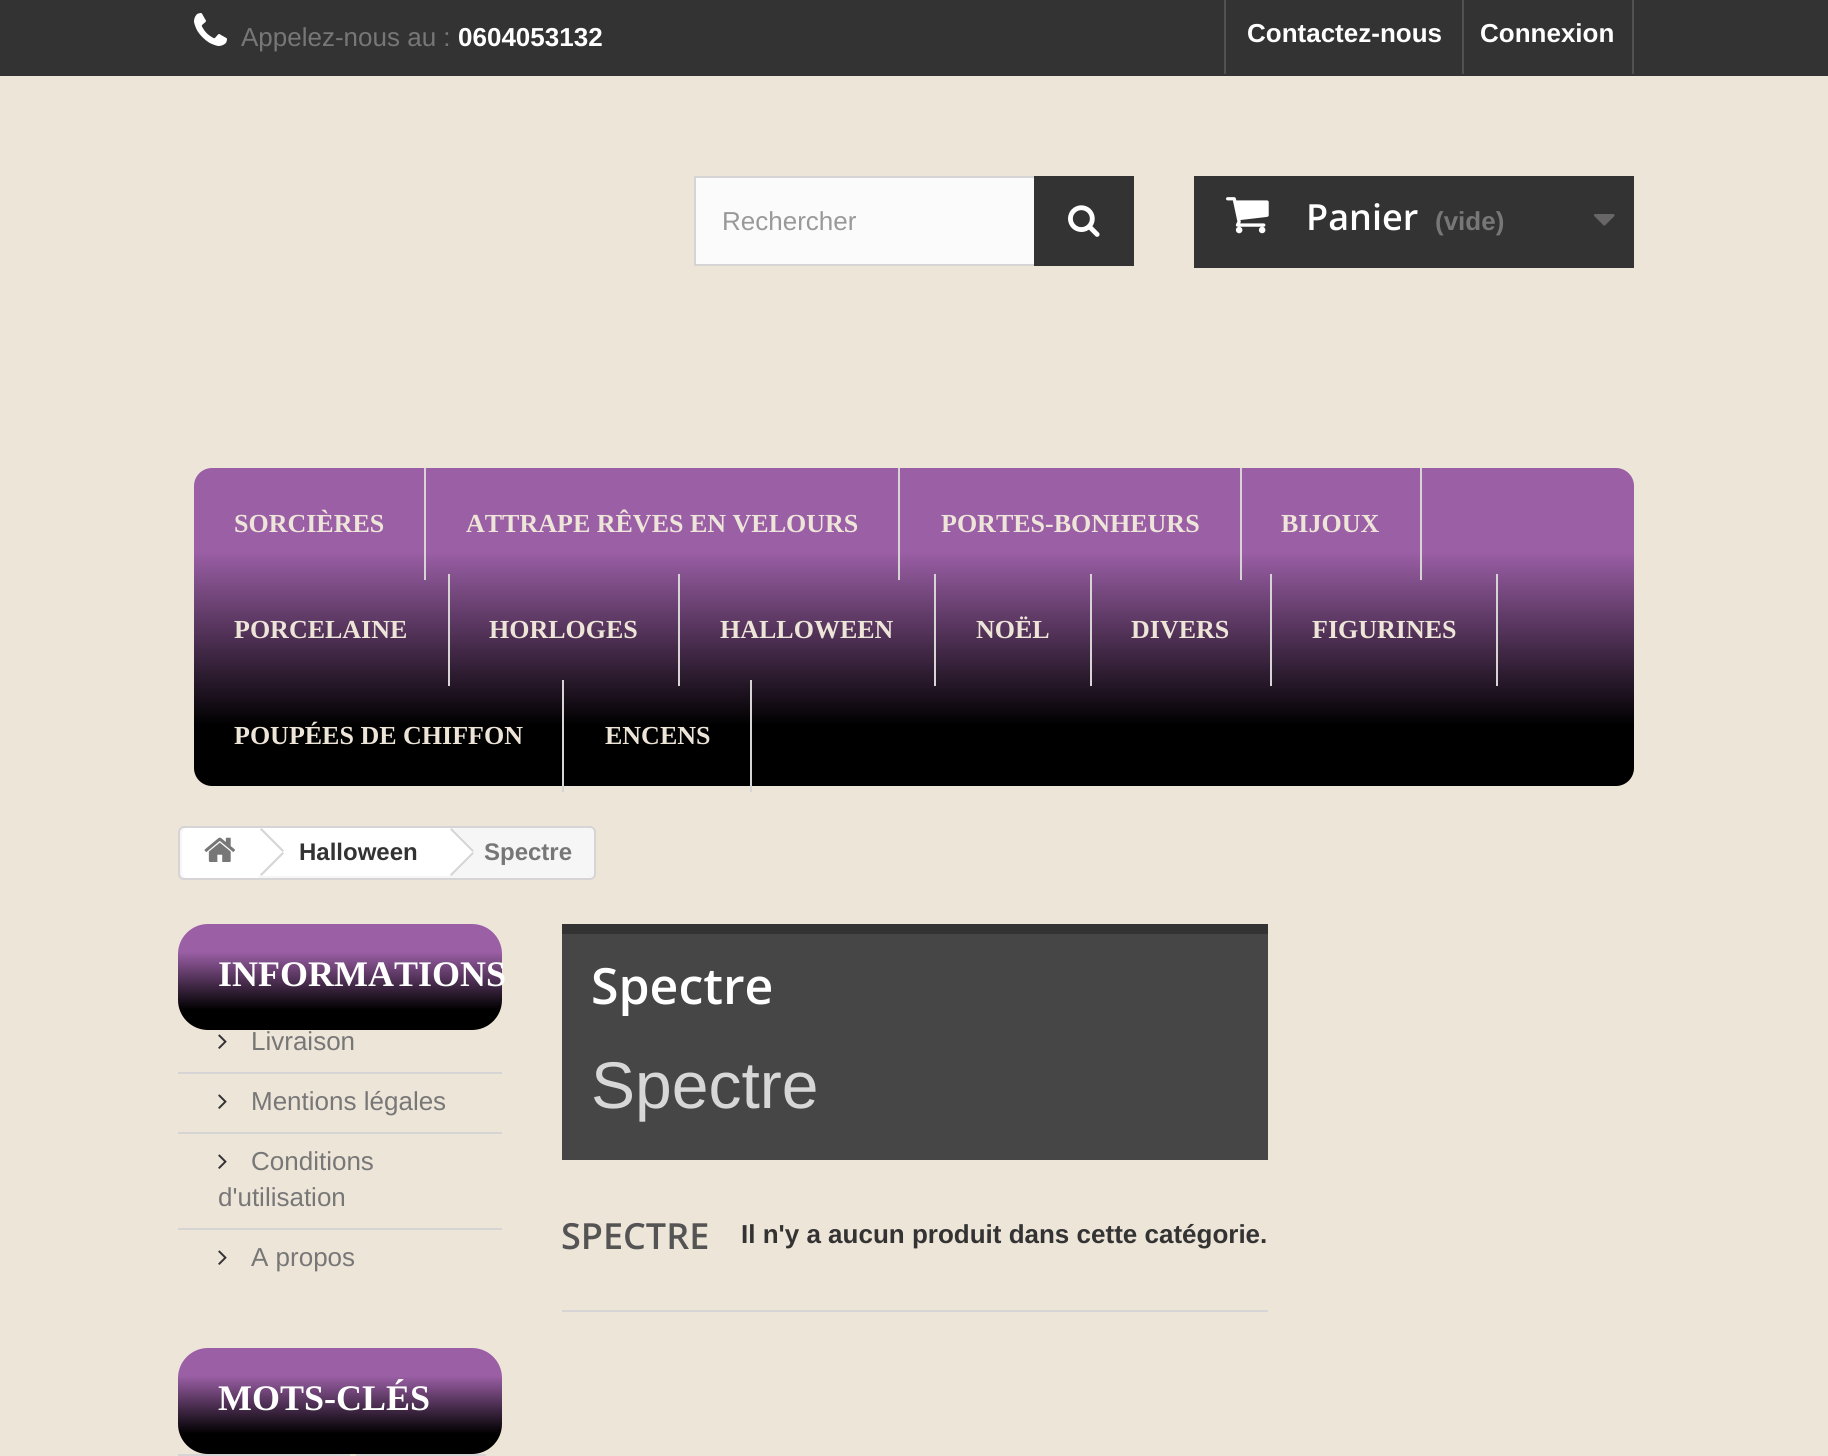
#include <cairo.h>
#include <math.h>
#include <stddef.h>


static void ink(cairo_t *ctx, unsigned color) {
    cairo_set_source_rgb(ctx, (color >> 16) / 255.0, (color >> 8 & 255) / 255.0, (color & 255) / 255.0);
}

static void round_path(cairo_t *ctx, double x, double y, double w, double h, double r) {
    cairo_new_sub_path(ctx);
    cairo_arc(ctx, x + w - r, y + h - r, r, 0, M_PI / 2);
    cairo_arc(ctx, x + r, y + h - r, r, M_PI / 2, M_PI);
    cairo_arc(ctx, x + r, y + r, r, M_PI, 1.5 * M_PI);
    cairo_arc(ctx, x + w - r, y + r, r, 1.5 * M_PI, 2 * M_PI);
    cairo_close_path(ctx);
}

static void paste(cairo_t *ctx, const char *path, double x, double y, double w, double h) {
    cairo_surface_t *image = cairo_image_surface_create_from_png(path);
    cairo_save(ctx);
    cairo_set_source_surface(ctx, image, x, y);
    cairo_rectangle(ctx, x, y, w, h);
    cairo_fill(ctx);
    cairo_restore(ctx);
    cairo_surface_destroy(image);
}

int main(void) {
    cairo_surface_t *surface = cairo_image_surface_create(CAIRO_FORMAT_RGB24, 1828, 1456);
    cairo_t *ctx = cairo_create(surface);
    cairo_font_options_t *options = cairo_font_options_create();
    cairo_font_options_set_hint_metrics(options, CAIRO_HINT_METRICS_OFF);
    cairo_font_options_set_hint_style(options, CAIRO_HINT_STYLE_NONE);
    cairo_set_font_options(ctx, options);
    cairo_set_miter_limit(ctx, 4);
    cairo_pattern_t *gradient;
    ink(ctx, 0xEEE5D9);
    cairo_paint(ctx);
    ink(ctx, 0x333333);
    cairo_rectangle(ctx, 0, 0, 1828, 76);
    cairo_fill(ctx);
    paste(ctx, "media/1.png", 194, 13, 33, 33);
    cairo_select_font_face(ctx, "Liberation Sans", CAIRO_FONT_SLANT_NORMAL, CAIRO_FONT_WEIGHT_NORMAL);
    cairo_set_font_size(ctx, 26);
    ink(ctx, 0x777777);
    cairo_move_to(ctx, 241, 46);
    cairo_show_text(ctx, "Appelez-nous au :");
    cairo_select_font_face(ctx, "Liberation Sans", CAIRO_FONT_SLANT_NORMAL, CAIRO_FONT_WEIGHT_BOLD);
    ink(ctx, 0xFFFFFF);
    cairo_move_to(ctx, 458, 46);
    cairo_show_text(ctx, "0604053132");
    ink(ctx, 0x515151);
    cairo_rectangle(ctx, 1224, 0, 2, 74);
    cairo_fill(ctx);
    ink(ctx, 0xFFFFFF);
    cairo_move_to(ctx, 1247, 42);
    cairo_show_text(ctx, "Contactez-nous");
    ink(ctx, 0x515151);
    cairo_rectangle(ctx, 1632, 0, 2, 74);
    cairo_fill(ctx);
    cairo_rectangle(ctx, 1462, 0, 2, 74);
    cairo_fill(ctx);
    ink(ctx, 0xFFFFFF);
    cairo_move_to(ctx, 1480, 42);
    cairo_show_text(ctx, "Connexion");
    ink(ctx, 0xFBFBFB);
    cairo_rectangle(ctx, 696, 178, 338, 86);
    cairo_fill(ctx);
    cairo_rectangle(ctx, 695, 177, 438, 88);
    ink(ctx, 0xD6D4D4);
    cairo_stroke(ctx);
    cairo_select_font_face(ctx, "Liberation Sans", CAIRO_FONT_SLANT_NORMAL, CAIRO_FONT_WEIGHT_NORMAL);
    ink(ctx, 0x999999);
    cairo_move_to(ctx, 722, 230);
    cairo_show_text(ctx, "Rechercher");
    ink(ctx, 0x333333);
    cairo_rectangle(ctx, 1034, 176, 100, 90);
    cairo_fill(ctx);
    paste(ctx, "media/2.png", 1068, 205, 32, 32);
    cairo_rectangle(ctx, 1194, 176, 440, 92);
    cairo_fill(ctx);
    paste(ctx, "media/3.png", 1226, 197, 43, 37);
    cairo_select_font_face(ctx, "Open Sans SemiBold", CAIRO_FONT_SLANT_NORMAL, CAIRO_FONT_WEIGHT_NORMAL);
    cairo_set_font_size(ctx, 36);
    ink(ctx, 0xFFFFFF);
    cairo_move_to(ctx, 1306, 230);
    cairo_show_text(ctx, "Panier");
    cairo_select_font_face(ctx, "Liberation Sans", CAIRO_FONT_SLANT_NORMAL, CAIRO_FONT_WEIGHT_BOLD);
    cairo_set_font_size(ctx, 26);
    ink(ctx, 0x777777);
    cairo_move_to(ctx, 1435, 230);
    cairo_show_text(ctx, "(vide)");
    paste(ctx, "media/4.png", 1594, 214, 21, 12);
    gradient = cairo_pattern_create_linear(914, 786, 914, 468);
    cairo_pattern_add_color_stop_rgba(gradient, 0.19, 0, 0, 0, 1);
    cairo_pattern_add_color_stop_rgba(gradient, 0.74, 0.608, 0.373, 0.651, 1);
    cairo_set_source(ctx, gradient);
    cairo_pattern_destroy(gradient);
    round_path(ctx, 194, 468, 1440, 318, 18);
    cairo_fill(ctx);
    ink(ctx, 0xD6D4D4);
    cairo_rectangle(ctx, 424, 468, 2, 112);
    cairo_fill(ctx);
    cairo_select_font_face(ctx, "Liberation Serif", CAIRO_FONT_SLANT_NORMAL, CAIRO_FONT_WEIGHT_BOLD);
    ink(ctx, 0xEEE5D9);
    cairo_move_to(ctx, 234, 532);
    cairo_show_text(ctx, "SORCIÈRES");
    ink(ctx, 0xD6D4D4);
    cairo_rectangle(ctx, 898, 468, 2, 112);
    cairo_fill(ctx);
    ink(ctx, 0xEEE5D9);
    cairo_move_to(ctx, 466, 532);
    cairo_show_text(ctx, "ATTRAPE RÊVES EN VELOURS");
    ink(ctx, 0xD6D4D4);
    cairo_rectangle(ctx, 1240, 468, 2, 112);
    cairo_fill(ctx);
    ink(ctx, 0xEEE5D9);
    cairo_move_to(ctx, 941, 532);
    cairo_show_text(ctx, "PORTES-BONHEURS");
    ink(ctx, 0xD6D4D4);
    cairo_rectangle(ctx, 1420, 468, 2, 112);
    cairo_fill(ctx);
    ink(ctx, 0xEEE5D9);
    cairo_move_to(ctx, 1281, 532);
    cairo_show_text(ctx, "BIJOUX");
    ink(ctx, 0xD6D4D4);
    cairo_rectangle(ctx, 448, 574, 2, 112);
    cairo_fill(ctx);
    ink(ctx, 0xEEE5D9);
    cairo_move_to(ctx, 234, 638);
    cairo_show_text(ctx, "PORCELAINE");
    ink(ctx, 0xD6D4D4);
    cairo_rectangle(ctx, 678, 574, 2, 112);
    cairo_fill(ctx);
    ink(ctx, 0xEEE5D9);
    cairo_move_to(ctx, 489, 638);
    cairo_show_text(ctx, "HORLOGES");
    ink(ctx, 0xD6D4D4);
    cairo_rectangle(ctx, 934, 574, 2, 112);
    cairo_fill(ctx);
    ink(ctx, 0xEEE5D9);
    cairo_move_to(ctx, 720, 638);
    cairo_show_text(ctx, "HALLOWEEN");
    ink(ctx, 0xD6D4D4);
    cairo_rectangle(ctx, 1090, 574, 2, 112);
    cairo_fill(ctx);
    ink(ctx, 0xEEE5D9);
    cairo_move_to(ctx, 976, 638);
    cairo_show_text(ctx, "NOËL");
    ink(ctx, 0xD6D4D4);
    cairo_rectangle(ctx, 1270, 574, 2, 112);
    cairo_fill(ctx);
    ink(ctx, 0xEEE5D9);
    cairo_move_to(ctx, 1131, 638);
    cairo_show_text(ctx, "DIVERS");
    ink(ctx, 0xD6D4D4);
    cairo_rectangle(ctx, 1496, 574, 2, 112);
    cairo_fill(ctx);
    ink(ctx, 0xEEE5D9);
    cairo_move_to(ctx, 1312, 638);
    cairo_show_text(ctx, "FIGURINES");
    ink(ctx, 0xD6D4D4);
    cairo_rectangle(ctx, 562, 680, 2, 112);
    cairo_fill(ctx);
    ink(ctx, 0xEEE5D9);
    cairo_move_to(ctx, 234, 744);
    cairo_show_text(ctx, "POUPÉES DE CHIFFON");
    ink(ctx, 0xD6D4D4);
    cairo_rectangle(ctx, 750, 680, 2, 112);
    cairo_fill(ctx);
    ink(ctx, 0xEEE5D9);
    cairo_move_to(ctx, 605, 744);
    cairo_show_text(ctx, "ENCENS");
    ink(ctx, 0xF6F6F6);
    round_path(ctx, 179, 827, 416, 52, 5);
    cairo_fill_preserve(ctx);
    ink(ctx, 0xD6D4D4);
    cairo_stroke(ctx);
    ink(ctx, 0xFFFFFF);
    cairo_new_path(ctx);
    cairo_move_to(ctx, 188, 828);
    cairo_line_to(ctx, 258, 828);
    cairo_line_to(ctx, 258, 878);
    cairo_line_to(ctx, 188, 878);
    cairo_curve_to(ctx, 184.5, 878, 182, 875.5, 182, 872);
    cairo_line_to(ctx, 182, 834);
    cairo_curve_to(ctx, 182, 830.5, 184.5, 828, 188, 828);
    cairo_close_path(ctx);
    cairo_fill(ctx);
    paste(ctx, "media/5.png", 204, 837, 31, 25);
    cairo_rectangle(ctx, 258, 828, 190, 48);
    cairo_fill(ctx);
    ink(ctx, 0xD6D4D4);
    cairo_new_path(ctx);
    cairo_move_to(ctx, 261.5, 828);
    cairo_line_to(ctx, 284, 850.5);
    cairo_line_to(ctx, 282.5, 852);
    cairo_line_to(ctx, 260, 829.5);
    cairo_close_path(ctx);
    cairo_move_to(ctx, 282.5, 852);
    cairo_line_to(ctx, 284, 853.5);
    cairo_line_to(ctx, 261.5, 876);
    cairo_line_to(ctx, 260, 874.5);
    cairo_close_path(ctx);
    cairo_fill(ctx);
    cairo_select_font_face(ctx, "Liberation Sans", CAIRO_FONT_SLANT_NORMAL, CAIRO_FONT_WEIGHT_BOLD);
    cairo_set_font_size(ctx, 24);
    ink(ctx, 0x333333);
    cairo_move_to(ctx, 299, 860);
    cairo_show_text(ctx, "Halloween");
    ink(ctx, 0xFFFFFF);
    cairo_new_path(ctx);
    cairo_move_to(ctx, 453, 829);
    cairo_line_to(ctx, 473, 849);
    cairo_curve_to(ctx, 474, 851, 474, 853, 473, 855);
    cairo_line_to(ctx, 453, 875);
    cairo_curve_to(ctx, 451, 876, 449, 876, 447, 875);
    cairo_line_to(ctx, 427, 855);
    cairo_curve_to(ctx, 426, 853, 426, 851, 427, 849);
    cairo_line_to(ctx, 447, 829);
    cairo_curve_to(ctx, 449, 828, 451, 828, 453, 829);
    cairo_close_path(ctx);
    cairo_fill(ctx);
    ink(ctx, 0xD6D4D4);
    cairo_new_path(ctx);
    cairo_move_to(ctx, 451.5, 828);
    cairo_line_to(ctx, 474, 850.5);
    cairo_line_to(ctx, 472.5, 852);
    cairo_line_to(ctx, 450, 829.5);
    cairo_close_path(ctx);
    cairo_move_to(ctx, 472.5, 852);
    cairo_line_to(ctx, 474, 853.5);
    cairo_line_to(ctx, 451.5, 876);
    cairo_line_to(ctx, 450, 874.5);
    cairo_close_path(ctx);
    cairo_fill(ctx);
    ink(ctx, 0x777777);
    cairo_move_to(ctx, 484, 860);
    cairo_show_text(ctx, "Spectre");
    gradient = cairo_pattern_create_linear(340, 1030, 340, 924);
    cairo_pattern_add_color_stop_rgba(gradient, 0.19, 0, 0, 0, 1);
    cairo_pattern_add_color_stop_rgba(gradient, 0.74, 0.608, 0.373, 0.651, 1);
    cairo_set_source(ctx, gradient);
    cairo_pattern_destroy(gradient);
    round_path(ctx, 178, 924, 324, 106, 30);
    cairo_fill(ctx);
    cairo_select_font_face(ctx, "Liberation Serif", CAIRO_FONT_SLANT_NORMAL, CAIRO_FONT_WEIGHT_BOLD);
    cairo_set_font_size(ctx, 36);
    ink(ctx, 0xFFFFFF);
    cairo_move_to(ctx, 218, 986);
    cairo_show_text(ctx, "INFORMATIONS");
    paste(ctx, "media/6.png", 218, 1034, 9, 15);
    cairo_select_font_face(ctx, "Liberation Sans", CAIRO_FONT_SLANT_NORMAL, CAIRO_FONT_WEIGHT_NORMAL);
    cairo_set_font_size(ctx, 26);
    ink(ctx, 0x777777);
    cairo_move_to(ctx, 251, 1050);
    cairo_show_text(ctx, "Livraison");
    ink(ctx, 0xD6D4D4);
    cairo_rectangle(ctx, 178, 1072, 324, 2);
    cairo_fill(ctx);
    paste(ctx, "media/6.png", 218, 1094, 9, 15);
    ink(ctx, 0x777777);
    cairo_move_to(ctx, 251, 1110);
    cairo_show_text(ctx, "Mentions légales");
    ink(ctx, 0xD6D4D4);
    cairo_rectangle(ctx, 178, 1132, 324, 2);
    cairo_fill(ctx);
    paste(ctx, "media/6.png", 218, 1154, 9, 15);
    ink(ctx, 0x777777);
    cairo_move_to(ctx, 251, 1170);
    cairo_show_text(ctx, "Conditions");
    cairo_move_to(ctx, 218, 1206);
    cairo_show_text(ctx, "d'utilisation");
    ink(ctx, 0xD6D4D4);
    cairo_rectangle(ctx, 178, 1228, 324, 2);
    cairo_fill(ctx);
    paste(ctx, "media/6.png", 218, 1250, 9, 15);
    ink(ctx, 0x777777);
    cairo_move_to(ctx, 251, 1266);
    cairo_show_text(ctx, "A propos");
    gradient = cairo_pattern_create_linear(340, 1454, 340, 1348);
    cairo_pattern_add_color_stop_rgba(gradient, 0.19, 0, 0, 0, 1);
    cairo_pattern_add_color_stop_rgba(gradient, 0.74, 0.608, 0.373, 0.651, 1);
    cairo_set_source(ctx, gradient);
    cairo_pattern_destroy(gradient);
    round_path(ctx, 178, 1348, 324, 106, 30);
    cairo_fill(ctx);
    cairo_select_font_face(ctx, "Liberation Serif", CAIRO_FONT_SLANT_NORMAL, CAIRO_FONT_WEIGHT_BOLD);
    cairo_set_font_size(ctx, 36);
    ink(ctx, 0xFFFFFF);
    cairo_move_to(ctx, 218, 1410);
    cairo_show_text(ctx, "MOTS-CLÉS");
    cairo_rectangle(ctx, 179, 1455, 170, 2);
    ink(ctx, 0xD6D4D4);
    cairo_stroke(ctx);
    cairo_rectangle(ctx, 357, 1455, 128, 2);
    cairo_stroke(ctx);
    ink(ctx, 0x333333);
    cairo_rectangle(ctx, 562, 924, 706, 10);
    cairo_fill(ctx);
    ink(ctx, 0x464646);
    cairo_rectangle(ctx, 562, 934, 706, 226);
    cairo_fill(ctx);
    cairo_select_font_face(ctx, "Open Sans SemiBold", CAIRO_FONT_SLANT_NORMAL, CAIRO_FONT_WEIGHT_NORMAL);
    cairo_set_font_size(ctx, 50);
    ink(ctx, 0xFFFFFF);
    cairo_move_to(ctx, 591, 1004);
    cairo_show_text(ctx, "Spectre");
    cairo_select_font_face(ctx, "Liberation Sans", CAIRO_FONT_SLANT_NORMAL, CAIRO_FONT_WEIGHT_NORMAL);
    cairo_set_font_size(ctx, 66);
    ink(ctx, 0xD7D7D7);
    cairo_move_to(ctx, 591, 1108);
    cairo_show_text(ctx, "Spectre");
    ink(ctx, 0xD6D4D4);
    cairo_rectangle(ctx, 562, 1310, 706, 2);
    cairo_fill(ctx);
    cairo_select_font_face(ctx, "Open Sans SemiBold", CAIRO_FONT_SLANT_NORMAL, CAIRO_FONT_WEIGHT_NORMAL);
    cairo_set_font_size(ctx, 36);
    ink(ctx, 0x555454);
    cairo_move_to(ctx, 561, 1249);
    cairo_show_text(ctx, "SPECTRE");
    cairo_select_font_face(ctx, "Liberation Sans", CAIRO_FONT_SLANT_NORMAL, CAIRO_FONT_WEIGHT_BOLD);
    cairo_set_font_size(ctx, 26);
    ink(ctx, 0x333333);
    cairo_move_to(ctx, 741, 1243);
    cairo_show_text(ctx, "Il n'y a aucun produit dans cette catégorie.");
    cairo_surface_write_to_png(surface, "image.png");
    cairo_font_options_destroy(options);
    cairo_destroy(ctx);
    cairo_surface_destroy(surface);
    return 0;
}
